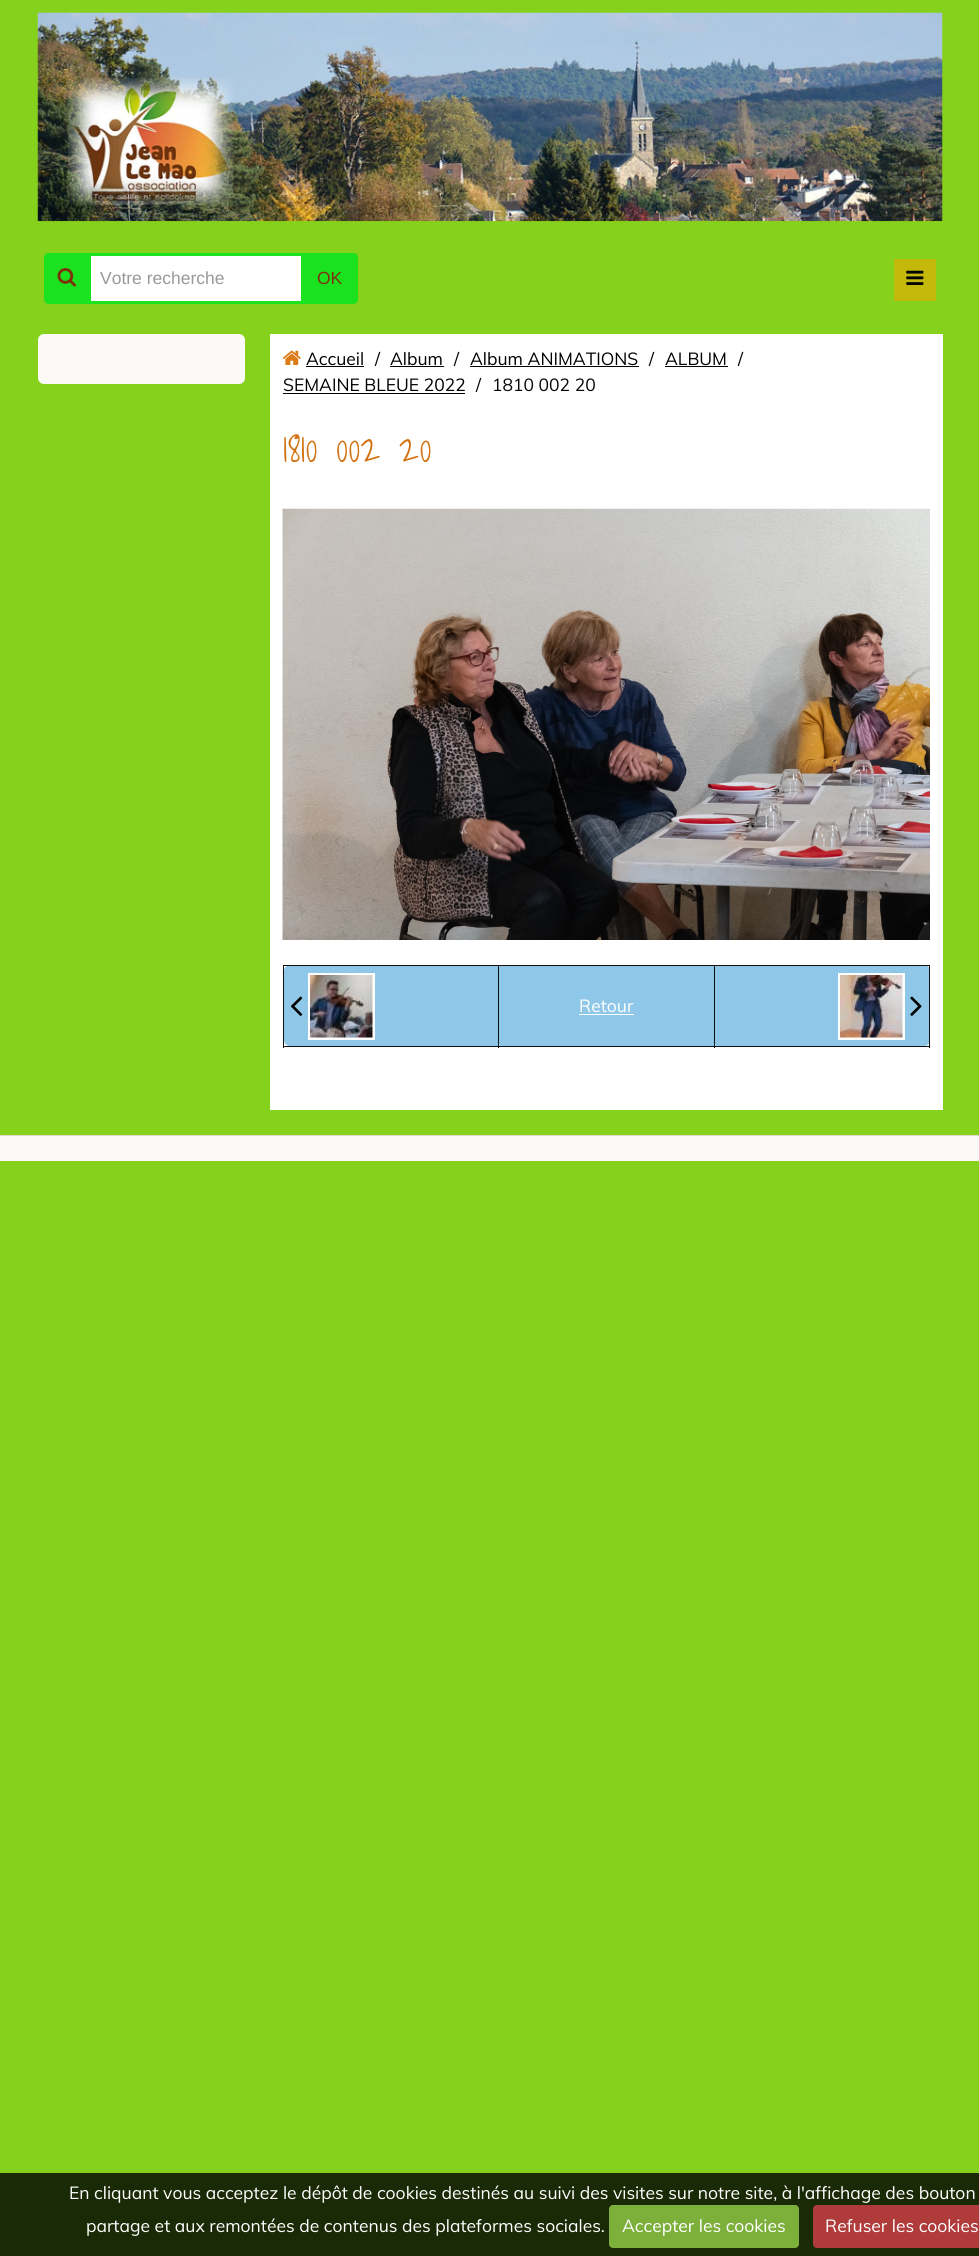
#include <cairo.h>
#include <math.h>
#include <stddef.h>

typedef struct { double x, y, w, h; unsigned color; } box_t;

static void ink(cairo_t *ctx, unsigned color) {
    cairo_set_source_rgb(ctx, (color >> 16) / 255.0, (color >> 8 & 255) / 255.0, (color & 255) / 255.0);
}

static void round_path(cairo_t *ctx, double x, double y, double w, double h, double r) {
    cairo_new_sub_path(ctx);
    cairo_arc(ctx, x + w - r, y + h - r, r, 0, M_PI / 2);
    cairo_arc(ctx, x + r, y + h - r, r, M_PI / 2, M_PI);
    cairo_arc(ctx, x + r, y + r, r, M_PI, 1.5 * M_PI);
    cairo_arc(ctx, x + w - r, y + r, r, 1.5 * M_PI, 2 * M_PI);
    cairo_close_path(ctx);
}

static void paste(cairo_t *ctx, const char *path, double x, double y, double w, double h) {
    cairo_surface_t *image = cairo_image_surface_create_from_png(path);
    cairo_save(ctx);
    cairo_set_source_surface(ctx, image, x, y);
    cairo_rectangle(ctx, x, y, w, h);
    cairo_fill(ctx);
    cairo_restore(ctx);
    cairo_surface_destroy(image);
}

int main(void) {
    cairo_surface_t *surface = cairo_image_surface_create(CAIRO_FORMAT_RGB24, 979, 2256);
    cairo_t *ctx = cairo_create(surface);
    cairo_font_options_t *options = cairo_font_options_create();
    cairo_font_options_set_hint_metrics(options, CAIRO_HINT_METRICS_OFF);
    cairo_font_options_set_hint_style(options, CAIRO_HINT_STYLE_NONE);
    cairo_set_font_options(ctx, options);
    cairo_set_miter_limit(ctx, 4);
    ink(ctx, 0x85D11C);
    cairo_paint(ctx);
    paste(ctx, "media/1.png", 37, 12, 906, 210);
    ink(ctx, 0x1AE21E);
    cairo_new_path(ctx);
    cairo_move_to(ctx, 49, 253);
    cairo_line_to(ctx, 89, 253);
    cairo_line_to(ctx, 89, 304);
    cairo_line_to(ctx, 49, 304);
    cairo_curve_to(ctx, 46, 304, 44, 302, 44, 299);
    cairo_line_to(ctx, 44, 258);
    cairo_curve_to(ctx, 44, 255, 46, 253, 49, 253);
    cairo_close_path(ctx);
    cairo_fill(ctx);
    paste(ctx, "media/2.png", 57, 268, 20, 19);
    cairo_new_path(ctx);
    cairo_move_to(ctx, 303, 253);
    cairo_line_to(ctx, 353, 253);
    cairo_curve_to(ctx, 356, 253, 358, 255, 358, 258);
    cairo_line_to(ctx, 358, 299);
    cairo_curve_to(ctx, 358, 302, 356, 304, 353, 304);
    cairo_line_to(ctx, 303, 304);
    cairo_close_path(ctx);
    cairo_fill(ctx);
    ink(ctx, 0xFFFFFF);
    cairo_rectangle(ctx, 89.5, 254.5, 213, 48);
    cairo_fill_preserve(ctx);
    ink(ctx, 0x1AE21E);
    cairo_set_line_width(ctx, 3);
    cairo_stroke(ctx);
    cairo_select_font_face(ctx, "Liberation Sans", CAIRO_FONT_SLANT_NORMAL, CAIRO_FONT_WEIGHT_NORMAL);
    cairo_set_font_size(ctx, 17.5);
    ink(ctx, 0x999999);
    cairo_move_to(ctx, 100, 284);
    cairo_show_text(ctx, "Votre recherche");
    ink(ctx, 0x7C320C);
    cairo_move_to(ctx, 317, 284);
    cairo_show_text(ctx, "OK");
    ink(ctx, 0xC4B80B);
    cairo_rectangle(ctx, 894, 259, 42, 42);
    cairo_fill(ctx);
    paste(ctx, "media/3.png", 906, 270, 18, 15);
    ink(ctx, 0xFBFAF7);
    round_path(ctx, 38, 334, 207, 50, 6);
    cairo_fill(ctx);
    ink(ctx, 0xFFFFFF);
    cairo_rectangle(ctx, 270, 334, 673, 776);
    cairo_fill(ctx);
    paste(ctx, "media/4.png", 282, 350, 19, 15);
    cairo_select_font_face(ctx, "Muli", CAIRO_FONT_SLANT_NORMAL, CAIRO_FONT_WEIGHT_NORMAL);
    ink(ctx, 0x000000);
    cairo_move_to(ctx, 306, 365);
    cairo_show_text(ctx, "Accueil");
    cairo_rectangle(ctx, 306, 366, 58, 1);
    cairo_fill(ctx);
    ink(ctx, 0x070707);
    cairo_move_to(ctx, 375, 365);
    cairo_show_text(ctx, "/");
    ink(ctx, 0x000000);
    cairo_move_to(ctx, 390, 365);
    cairo_show_text(ctx, "Album");
    cairo_rectangle(ctx, 390, 366, 54, 1);
    cairo_fill(ctx);
    ink(ctx, 0x070707);
    cairo_move_to(ctx, 454, 365);
    cairo_show_text(ctx, "/");
    ink(ctx, 0x000000);
    cairo_move_to(ctx, 470, 365);
    cairo_show_text(ctx, "Album ANIMATIONS");
    cairo_rectangle(ctx, 470, 366, 169, 1);
    cairo_fill(ctx);
    ink(ctx, 0x070707);
    cairo_move_to(ctx, 649, 365);
    cairo_show_text(ctx, "/");
    ink(ctx, 0x000000);
    cairo_move_to(ctx, 665, 365);
    cairo_show_text(ctx, "ALBUM");
    cairo_rectangle(ctx, 665, 366, 63, 1);
    cairo_fill(ctx);
    ink(ctx, 0x070707);
    cairo_move_to(ctx, 738, 365);
    cairo_show_text(ctx, "/");
    ink(ctx, 0x000000);
    cairo_move_to(ctx, 283, 391);
    cairo_show_text(ctx, "SEMAINE BLEUE 2022");
    cairo_rectangle(ctx, 283, 393, 182, 1);
    cairo_fill(ctx);
    ink(ctx, 0x070707);
    cairo_move_to(ctx, 476, 391);
    cairo_show_text(ctx, "/");
    cairo_move_to(ctx, 492, 391);
    cairo_show_text(ctx, "1810 002 20");
    cairo_select_font_face(ctx, "Shadows Into Light", CAIRO_FONT_SLANT_NORMAL, CAIRO_FONT_WEIGHT_NORMAL);
    cairo_set_font_size(ctx, 40);
    ink(ctx, 0xD27212);
    cairo_move_to(ctx, 283, 462);
    cairo_show_text(ctx, "1810 002 20");
    paste(ctx, "media/5.png", 282, 508, 648, 432);
    ink(ctx, 0x8FC7E8);
    cairo_new_path(ctx);
    cairo_move_to(ctx, 290, 965);
    cairo_line_to(ctx, 499, 965);
    cairo_line_to(ctx, 499, 1046);
    cairo_line_to(ctx, 290, 1046);
    cairo_curve_to(ctx, 286.5, 1046, 284, 1043.5, 284, 1040);
    cairo_line_to(ctx, 284, 971);
    cairo_curve_to(ctx, 284, 967.5, 286.5, 965, 290, 965);
    cairo_close_path(ctx);
    cairo_fill(ctx);
    cairo_new_path(ctx);
    cairo_move_to(ctx, 714, 965);
    cairo_line_to(ctx, 924, 965);
    cairo_curve_to(ctx, 927.5, 965, 930, 967.5, 930, 971);
    cairo_line_to(ctx, 930, 1040);
    cairo_curve_to(ctx, 930, 1043.5, 927.5, 1046, 924, 1046);
    cairo_line_to(ctx, 714, 1046);
    cairo_close_path(ctx);
    cairo_fill(ctx);
    {
        static const box_t items[] = {
            {283, 965, 647, 1, 0x0F0F0F},
            {929, 965, 1, 83, 0x0F0F0F},
            {283, 1046, 647, 1, 0x0F0F0F},
            {283, 965, 1, 83, 0x0F0F0F},
        };
        for (size_t i = 0; i < sizeof items / sizeof *items; i++) {
            ink(ctx, items[i].color);
            cairo_rectangle(ctx, items[i].x, items[i].y, items[i].w, items[i].h);
            cairo_fill(ctx);
        }
    }
    cairo_rectangle(ctx, 309.5, 974.5, 64, 64);
    ink(ctx, 0xFFFFFF);
    cairo_stroke(ctx);
    paste(ctx, "media/6.png", 290, 996, 13, 20);
    paste(ctx, "media/7.png", 310, 975, 63, 63);
    ink(ctx, 0x8FC7E8);
    cairo_rectangle(ctx, 499, 966, 215, 80);
    cairo_fill(ctx);
    ink(ctx, 0x0F0F0F);
    cairo_rectangle(ctx, 498, 965, 1, 83);
    cairo_fill(ctx);
    cairo_select_font_face(ctx, "Muli", CAIRO_FONT_SLANT_NORMAL, CAIRO_FONT_WEIGHT_NORMAL);
    cairo_set_font_size(ctx, 17.5);
    ink(ctx, 0xFFFFFF);
    cairo_move_to(ctx, 579, 1012);
    cairo_show_text(ctx, "Retour");
    cairo_rectangle(ctx, 579, 1014, 55, 1);
    cairo_fill(ctx);
    ink(ctx, 0x0F0F0F);
    cairo_rectangle(ctx, 714, 965, 1, 83);
    cairo_fill(ctx);
    cairo_rectangle(ctx, 839.5, 974.5, 64, 64);
    ink(ctx, 0xFFFFFF);
    cairo_stroke(ctx);
    paste(ctx, "media/8.png", 840, 975, 63, 63);
    paste(ctx, "media/9.png", 910, 996, 12, 20);
    {
        static const box_t items[] = {
            {0, 1136, 979, 25, 0xFBFAF7},
            {0, 1135, 979, 1, 0xDED9CD},
            {0, 2173, 979, 83, 0x1B2A06},
        };
        for (size_t i = 0; i < sizeof items / sizeof *items; i++) {
            ink(ctx, items[i].color);
            cairo_rectangle(ctx, items[i].x, items[i].y, items[i].w, items[i].h);
            cairo_fill(ctx);
        }
    }
    ink(ctx, 0xFFFFFF);
    cairo_move_to(ctx, 69, 2199);
    cairo_show_text(ctx, "En cliquant vous acceptez le dépôt de cookies destinés au suivi des visites sur notre site, à l'affichage des bouton");
    cairo_move_to(ctx, 86, 2232);
    cairo_show_text(ctx, "partage et aux remontées de contenus des plateformes sociales.");
    ink(ctx, 0x7DAF3B);
    round_path(ctx, 609, 2205, 190, 43, 4);
    cairo_fill(ctx);
    ink(ctx, 0xFFFFFF);
    cairo_move_to(ctx, 622, 2232);
    cairo_show_text(ctx, "Accepter les cookies");
    ink(ctx, 0xAF3B3B);
    round_path(ctx, 813, 2205, 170, 43, 4);
    cairo_fill(ctx);
    ink(ctx, 0xFFFFFF);
    cairo_move_to(ctx, 825, 2232);
    cairo_show_text(ctx, "Refuser les cookies");
    cairo_surface_write_to_png(surface, "image.png");
    cairo_font_options_destroy(options);
    cairo_destroy(ctx);
    cairo_surface_destroy(surface);
    return 0;
}
